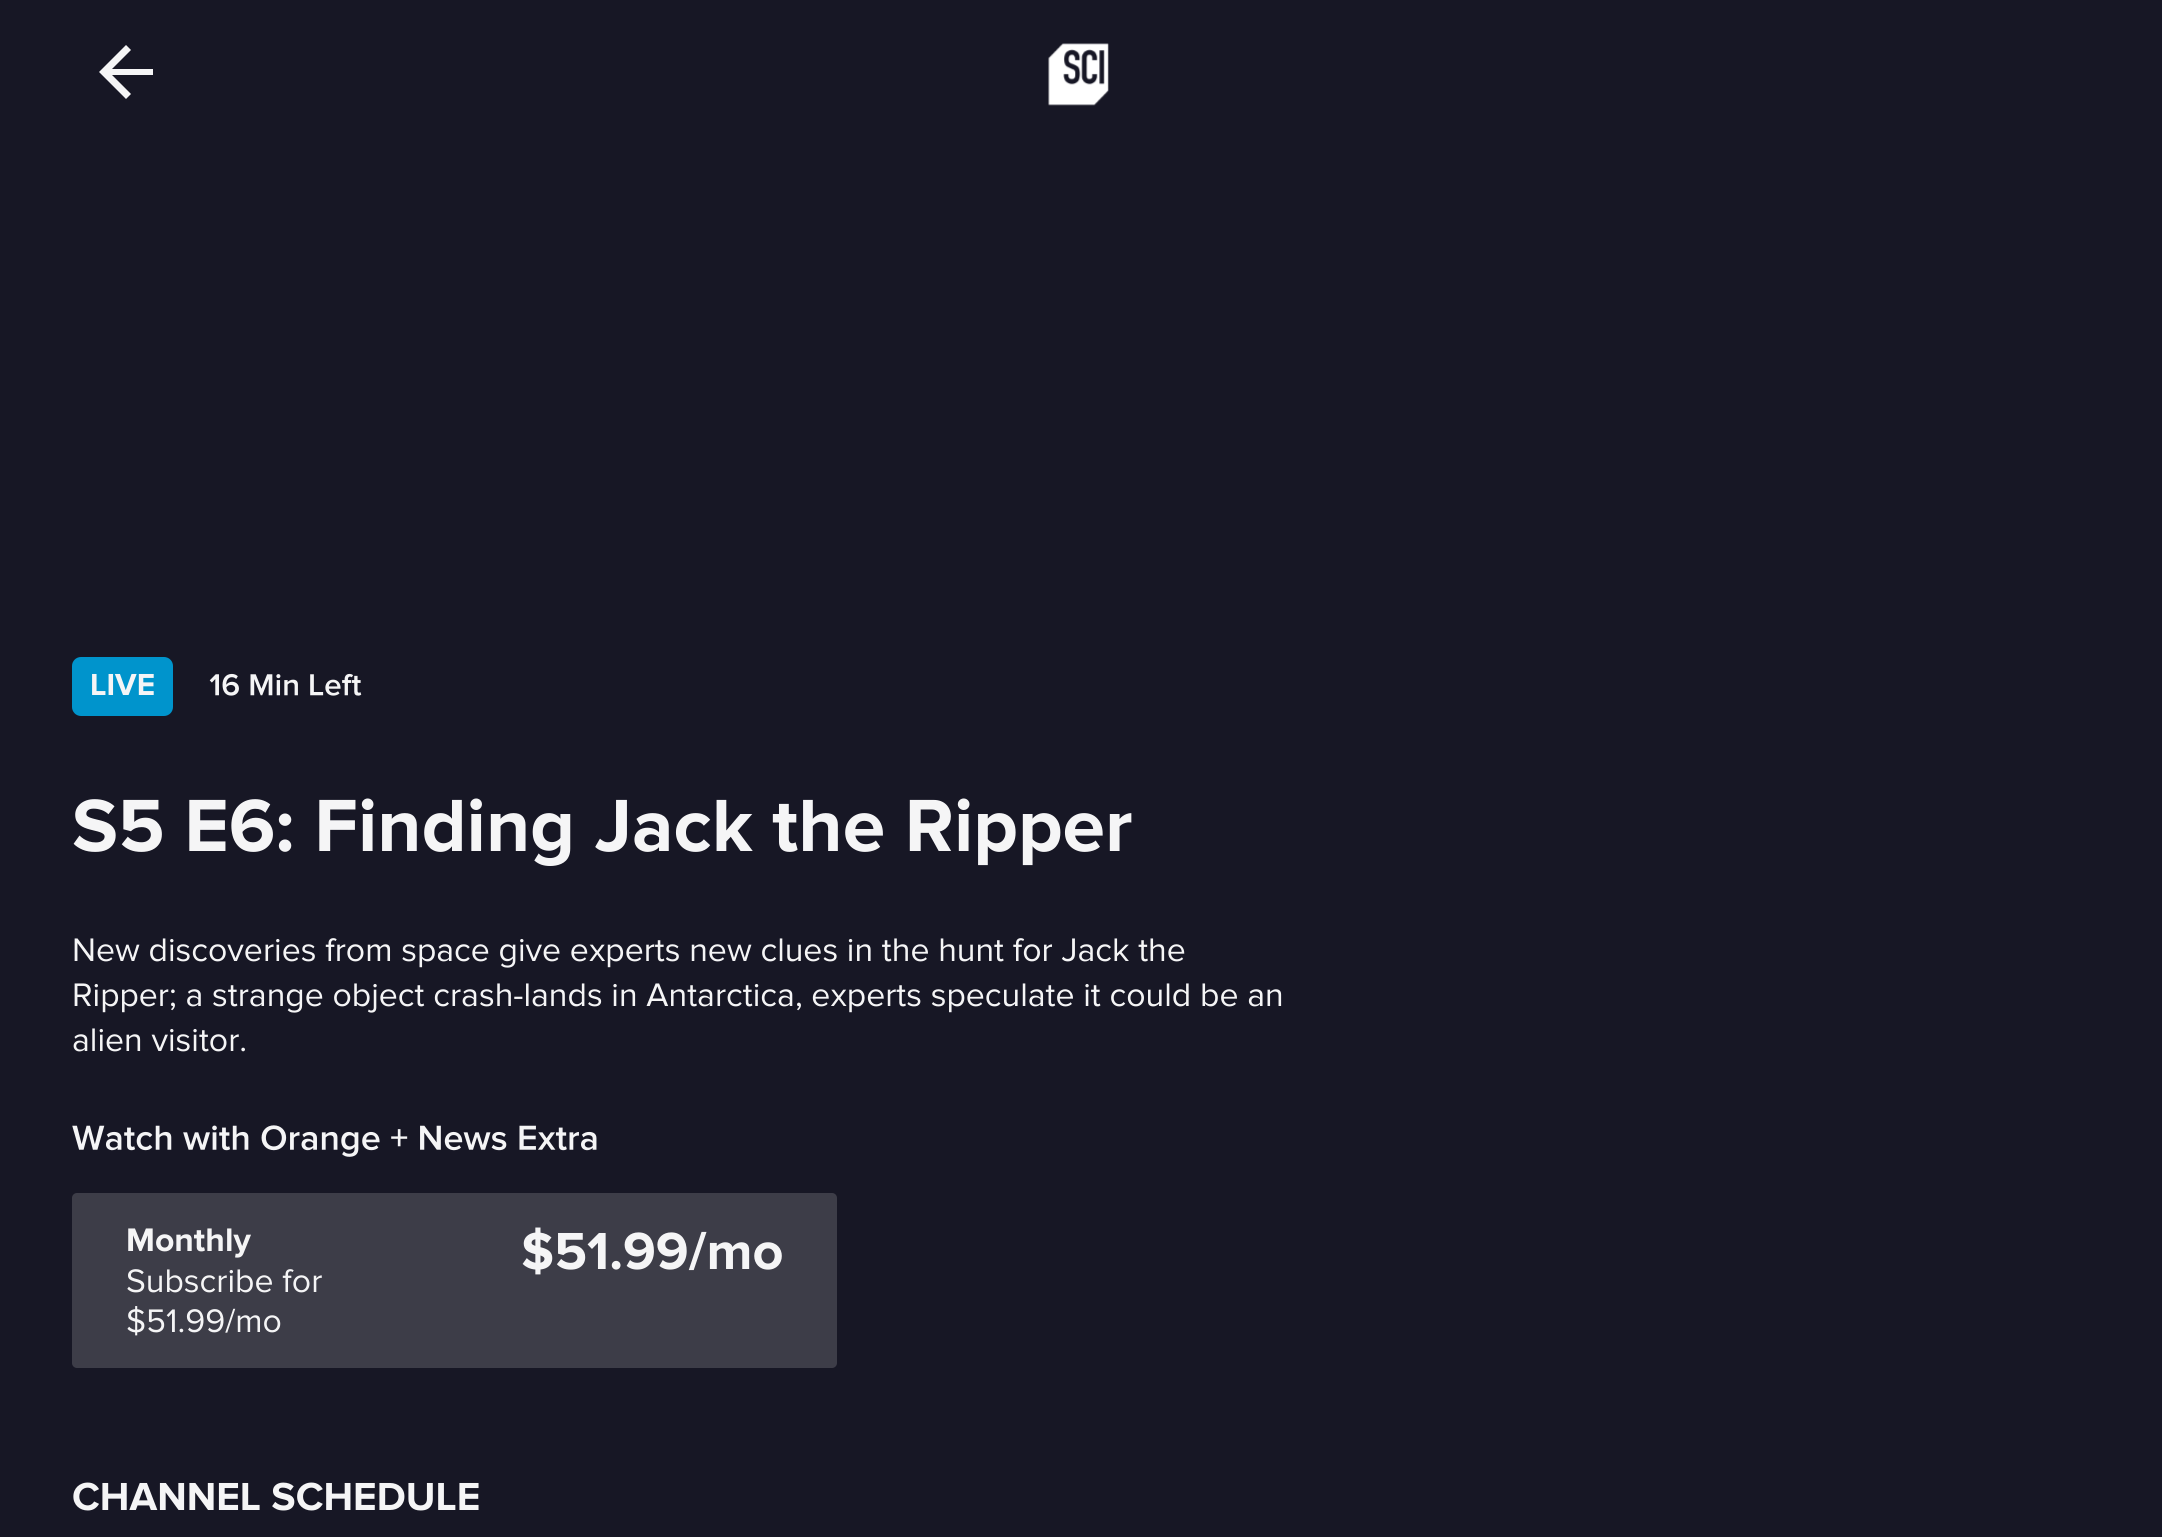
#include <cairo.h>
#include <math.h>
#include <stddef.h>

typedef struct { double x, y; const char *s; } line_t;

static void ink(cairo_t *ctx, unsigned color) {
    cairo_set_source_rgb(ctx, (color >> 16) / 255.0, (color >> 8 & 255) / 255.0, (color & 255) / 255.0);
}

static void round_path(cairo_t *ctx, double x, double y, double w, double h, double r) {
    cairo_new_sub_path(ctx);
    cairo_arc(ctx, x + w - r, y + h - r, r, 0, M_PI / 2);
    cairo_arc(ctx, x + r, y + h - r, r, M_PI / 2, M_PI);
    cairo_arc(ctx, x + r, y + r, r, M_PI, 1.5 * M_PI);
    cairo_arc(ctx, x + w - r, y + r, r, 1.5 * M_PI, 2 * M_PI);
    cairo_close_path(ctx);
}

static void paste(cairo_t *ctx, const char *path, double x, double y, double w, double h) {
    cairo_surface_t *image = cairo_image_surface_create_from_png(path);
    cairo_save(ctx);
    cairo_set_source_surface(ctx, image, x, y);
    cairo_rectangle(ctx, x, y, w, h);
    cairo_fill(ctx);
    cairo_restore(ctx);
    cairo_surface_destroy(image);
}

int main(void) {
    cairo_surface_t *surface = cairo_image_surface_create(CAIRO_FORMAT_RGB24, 2162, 1537);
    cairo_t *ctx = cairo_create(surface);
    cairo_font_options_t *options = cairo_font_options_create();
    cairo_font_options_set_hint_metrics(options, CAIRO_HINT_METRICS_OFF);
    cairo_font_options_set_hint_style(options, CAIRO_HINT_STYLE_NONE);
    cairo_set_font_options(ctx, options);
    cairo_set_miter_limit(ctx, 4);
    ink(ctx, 0x171725);
    cairo_paint(ctx);
    ink(ctx, 0xF5F5F6);
    cairo_set_fill_rule(ctx, CAIRO_FILL_RULE_EVEN_ODD);
    cairo_new_path(ctx);
    cairo_move_to(ctx, 153, 69);
    cairo_line_to(ctx, 112, 69);
    cairo_line_to(ctx, 131, 50);
    cairo_line_to(ctx, 126, 45);
    cairo_line_to(ctx, 99, 72);
    cairo_line_to(ctx, 126, 99);
    cairo_line_to(ctx, 131, 94);
    cairo_line_to(ctx, 112, 75);
    cairo_line_to(ctx, 153, 75);
    cairo_close_path(ctx);
    cairo_fill(ctx);
    paste(ctx, "media/1.png", 1048, 43, 61, 63);
    ink(ctx, 0x0094CC);
    round_path(ctx, 72, 657, 101, 59, 9);
    cairo_fill(ctx);
    cairo_select_font_face(ctx, "Proxima Nova", CAIRO_FONT_SLANT_NORMAL, CAIRO_FONT_WEIGHT_BOLD);
    cairo_set_font_size(ctx, 31.5);
    ink(ctx, 0xF5F5F6);
    cairo_move_to(ctx, 90, 695);
    cairo_show_text(ctx, "LIVE");
    paste(ctx, "media/2.png", 209, 673, 153, 23);
    cairo_set_font_size(ctx, 76.6);
    cairo_move_to(ctx, 72, 851);
    cairo_show_text(ctx, "S5 E6: Finding Jack the Ripper");
    cairo_select_font_face(ctx, "Proxima Nova", CAIRO_FONT_SLANT_NORMAL, CAIRO_FONT_WEIGHT_NORMAL);
    cairo_set_font_size(ctx, 33.8);
    {
        static const line_t items[] = {
            {72, 961, "New discoveries from space give experts new clues in the hunt for Jack the"},
            {72, 1006, "Ripper; a strange object crash-lands in Antarctica, experts speculate it could be an"},
            {72, 1051, "alien visitor."},
        };
        for (size_t i = 0; i < sizeof items / sizeof *items; i++) {
            cairo_move_to(ctx, items[i].x, items[i].y);
            cairo_show_text(ctx, items[i].s);
        }
    }
    paste(ctx, "media/3.png", 72, 1125, 525, 32);
    ink(ctx, 0x3D3D48);
    round_path(ctx, 72, 1193, 765, 175, 5);
    cairo_fill(ctx);
    cairo_select_font_face(ctx, "Proxima Nova", CAIRO_FONT_SLANT_NORMAL, CAIRO_FONT_WEIGHT_BOLD);
    ink(ctx, 0xF5F5F6);
    cairo_move_to(ctx, 126, 1251);
    cairo_show_text(ctx, "Monthly");
    cairo_select_font_face(ctx, "Proxima Nova", CAIRO_FONT_SLANT_NORMAL, CAIRO_FONT_WEIGHT_NORMAL);
    cairo_move_to(ctx, 126, 1292);
    cairo_show_text(ctx, "Subscribe for");
    cairo_move_to(ctx, 126, 1332);
    cairo_show_text(ctx, "$51.99/mo");
    cairo_select_font_face(ctx, "Proxima Nova", CAIRO_FONT_SLANT_NORMAL, CAIRO_FONT_WEIGHT_BOLD);
    cairo_set_font_size(ctx, 54);
    cairo_move_to(ctx, 521, 1269);
    cairo_show_text(ctx, "$51.99/mo");
    cairo_set_font_size(ctx, 40.5);
    cairo_move_to(ctx, 72, 1510);
    cairo_show_text(ctx, "CHANNEL SCHEDULE");
    cairo_surface_write_to_png(surface, "image.png");
    cairo_font_options_destroy(options);
    cairo_destroy(ctx);
    cairo_surface_destroy(surface);
    return 0;
}
